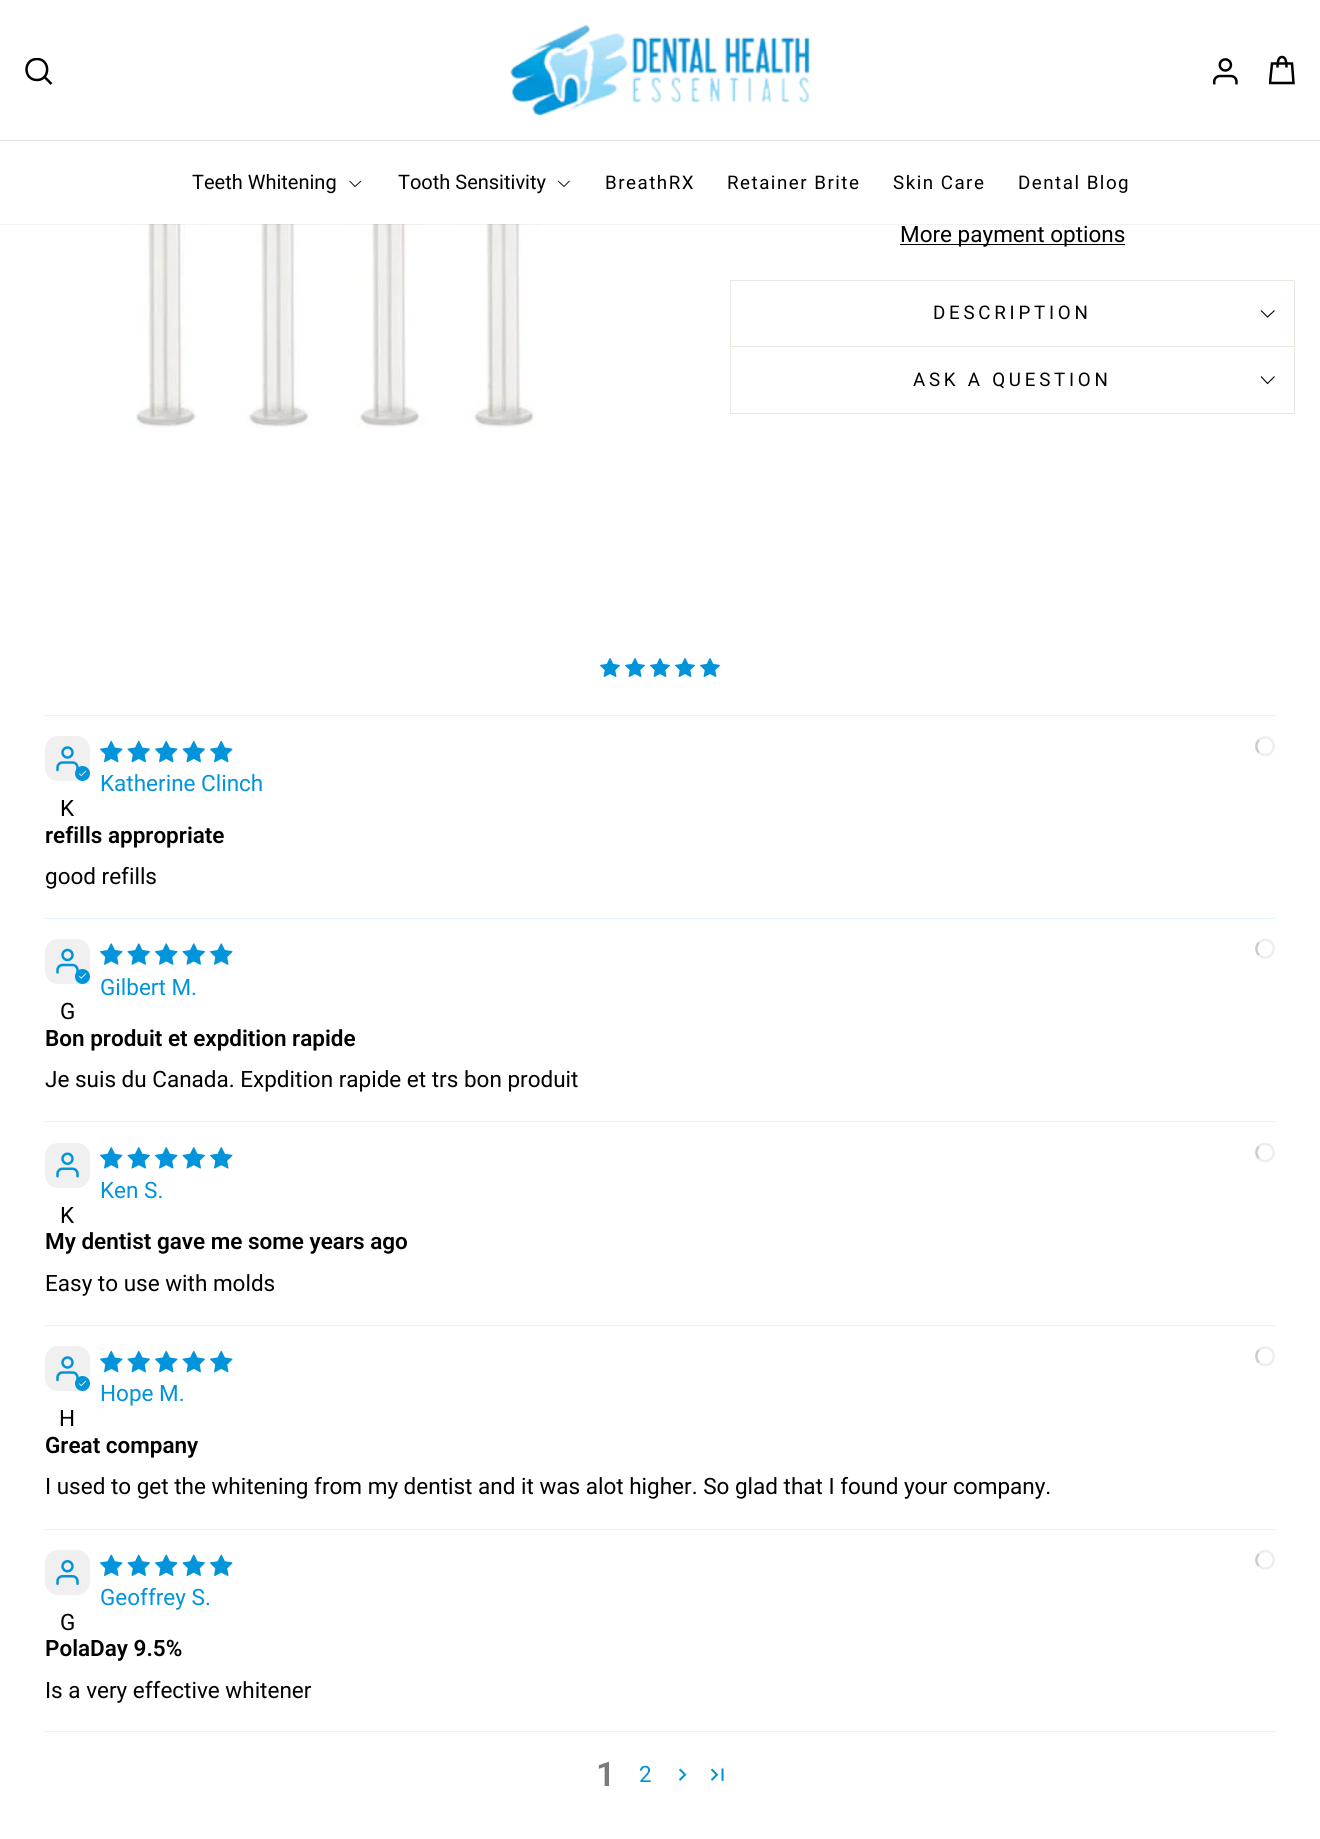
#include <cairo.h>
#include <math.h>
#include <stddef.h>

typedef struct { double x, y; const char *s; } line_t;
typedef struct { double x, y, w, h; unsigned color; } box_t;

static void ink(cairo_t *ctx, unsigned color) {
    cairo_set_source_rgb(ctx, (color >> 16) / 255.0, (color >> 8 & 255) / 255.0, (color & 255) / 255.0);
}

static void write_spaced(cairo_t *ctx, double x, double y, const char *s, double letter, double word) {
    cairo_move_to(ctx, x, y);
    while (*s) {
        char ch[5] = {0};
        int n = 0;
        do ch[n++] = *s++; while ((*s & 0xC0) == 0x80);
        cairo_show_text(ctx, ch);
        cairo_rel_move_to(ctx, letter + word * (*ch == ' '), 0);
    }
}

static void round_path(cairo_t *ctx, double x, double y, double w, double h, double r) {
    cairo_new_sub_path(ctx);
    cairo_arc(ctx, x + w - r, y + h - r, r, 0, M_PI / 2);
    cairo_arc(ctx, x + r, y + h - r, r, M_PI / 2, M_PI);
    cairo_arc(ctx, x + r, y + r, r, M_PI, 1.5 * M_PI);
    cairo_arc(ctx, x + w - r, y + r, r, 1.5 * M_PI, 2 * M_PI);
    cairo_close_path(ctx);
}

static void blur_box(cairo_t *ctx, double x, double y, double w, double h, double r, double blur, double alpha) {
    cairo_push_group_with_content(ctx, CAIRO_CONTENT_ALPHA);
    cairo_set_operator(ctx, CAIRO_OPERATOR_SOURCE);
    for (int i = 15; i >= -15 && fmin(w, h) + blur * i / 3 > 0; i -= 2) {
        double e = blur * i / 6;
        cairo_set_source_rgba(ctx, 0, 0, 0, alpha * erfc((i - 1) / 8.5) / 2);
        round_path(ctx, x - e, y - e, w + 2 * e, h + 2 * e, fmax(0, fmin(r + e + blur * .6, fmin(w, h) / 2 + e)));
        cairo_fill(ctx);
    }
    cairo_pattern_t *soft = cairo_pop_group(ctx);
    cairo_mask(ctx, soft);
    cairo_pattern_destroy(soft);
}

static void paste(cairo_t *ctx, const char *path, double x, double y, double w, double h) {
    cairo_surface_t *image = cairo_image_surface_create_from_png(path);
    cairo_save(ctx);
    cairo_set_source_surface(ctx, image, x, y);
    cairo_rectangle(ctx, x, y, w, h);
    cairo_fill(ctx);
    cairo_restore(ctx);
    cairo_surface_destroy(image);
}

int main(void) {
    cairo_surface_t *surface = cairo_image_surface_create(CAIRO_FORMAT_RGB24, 1320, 1839);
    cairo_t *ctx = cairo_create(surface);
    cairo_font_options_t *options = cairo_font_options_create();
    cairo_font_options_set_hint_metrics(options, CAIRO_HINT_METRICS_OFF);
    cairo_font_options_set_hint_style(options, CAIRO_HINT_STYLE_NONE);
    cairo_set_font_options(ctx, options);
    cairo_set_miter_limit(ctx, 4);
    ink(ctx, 0xFFFFFF);
    cairo_paint(ctx);
    paste(ctx, "media/3.png", 120, 224, 427, 204);
    ink(ctx, 0x000000);
    blur_box(ctx, 0, 0, 1320, 224, 0, 0.5, 0.2);
    ink(ctx, 0xFFFFFF);
    cairo_rectangle(ctx, 0, 0, 1320, 224);
    cairo_fill(ctx);
    cairo_save(ctx);
    cairo_rectangle(ctx, 25, 58, 28, 27);
    cairo_clip(ctx);
    cairo_new_path(ctx);
    cairo_move_to(ctx, 37, 80);
    cairo_curve_to(ctx, 50.5, 80, 50.5, 59, 37, 59);
    cairo_curve_to(ctx, 23, 59, 23, 80, 37, 80);
    cairo_close_path(ctx);
    ink(ctx, 0x000000);
    cairo_set_line_width(ctx, 2.5);
    cairo_stroke(ctx);
    cairo_restore(ctx);
    cairo_new_path(ctx);
    cairo_move_to(ctx, 44, 76.5);
    cairo_line_to(ctx, 51.5, 84);
    ink(ctx, 0x000000);
    cairo_set_line_width(ctx, 2.5);
    cairo_stroke(ctx);
    paste(ctx, "media/1.png", 510, 25, 300, 91);
    paste(ctx, "media/2.png", 1213, 58, 25, 27);
    cairo_new_path(ctx);
    cairo_move_to(ctx, 1277.5, 67.5);
    cairo_curve_to(ctx, 1277.5, 59, 1279.5, 57, 1282, 57);
    cairo_curve_to(ctx, 1284.5, 57, 1286.5, 59, 1286.5, 67.5);
    cairo_stroke(ctx);
    cairo_save(ctx);
    cairo_rectangle(ctx, 1269, 55, 26, 30);
    cairo_clip(ctx);
    cairo_new_path(ctx);
    cairo_move_to(ctx, 1272, 63.5);
    cairo_line_to(ctx, 1292, 63.5);
    cairo_line_to(ctx, 1293.5, 83);
    cairo_line_to(ctx, 1270, 83);
    cairo_close_path(ctx);
    cairo_stroke(ctx);
    cairo_restore(ctx);
    ink(ctx, 0xE0E0E0);
    cairo_rectangle(ctx, 0, 140, 1320, 1);
    cairo_fill(ctx);
    cairo_select_font_face(ctx, "Roboto", CAIRO_FONT_SLANT_NORMAL, CAIRO_FONT_WEIGHT_NORMAL);
    cairo_set_font_size(ctx, 20);
    ink(ctx, 0x000000);
    cairo_move_to(ctx, 192, 189);
    cairo_show_text(ctx, "Teeth Whitening");
    cairo_new_path(ctx);
    cairo_move_to(ctx, 349.5, 181);
    cairo_line_to(ctx, 355, 186.5);
    cairo_line_to(ctx, 361, 181);
    cairo_set_line_width(ctx, 0.9);
    cairo_stroke(ctx);
    cairo_move_to(ctx, 398, 189);
    cairo_show_text(ctx, "Tooth Sensitivity");
    cairo_new_path(ctx);
    cairo_move_to(ctx, 558, 181);
    cairo_line_to(ctx, 564, 186.5);
    cairo_line_to(ctx, 569.5, 181);
    cairo_stroke(ctx);
    cairo_set_font_size(ctx, 18.75);
    {
        static const line_t items[] = {
            {605, 189, "BreathRX"},
            {727, 189, "Retainer Brite"},
            {893, 189, "Skin Care"},
            {1018, 189, "Dental Blog"},
        };
        for (size_t i = 0; i < sizeof items / sizeof *items; i++) {
            write_spaced(ctx, items[i].x, items[i].y, items[i].s, 1.5, 0);
        }
    }
    cairo_rectangle(ctx, 900, 244, 225, 1);
    cairo_fill(ctx);
    cairo_set_font_size(ctx, 22.5);
    cairo_move_to(ctx, 900, 242);
    cairo_show_text(ctx, "More payment options");
    {
        static const box_t items[] = {
            {730, 346, 565, 1, 0xE8E8E1},
            {730, 280, 565, 1, 0xE8E8E1},
            {1294, 280, 1, 66, 0xE8E8E1},
            {730, 280, 1, 66, 0xE8E8E1},
        };
        for (size_t i = 0; i < sizeof items / sizeof *items; i++) {
            ink(ctx, items[i].color);
            cairo_rectangle(ctx, items[i].x, items[i].y, items[i].w, items[i].h);
            cairo_fill(ctx);
        }
    }
    cairo_set_font_size(ctx, 18.75);
    ink(ctx, 0x000000);
    write_spaced(ctx, 933, 319, "DESCRIPTION", 3.75, 0);
    cairo_new_path(ctx);
    cairo_move_to(ctx, 1261, 310.5);
    cairo_line_to(ctx, 1267.5, 317);
    cairo_line_to(ctx, 1274.5, 310.5);
    cairo_set_line_width(ctx, 1.1);
    cairo_stroke(ctx);
    {
        static const box_t items[] = {
            {730, 413, 565, 1, 0xE8E8E1},
            {1294, 348, 1, 65, 0xE8E8E1},
            {730, 348, 1, 65, 0xE8E8E1},
        };
        for (size_t i = 0; i < sizeof items / sizeof *items; i++) {
            ink(ctx, items[i].color);
            cairo_rectangle(ctx, items[i].x, items[i].y, items[i].w, items[i].h);
            cairo_fill(ctx);
        }
    }
    ink(ctx, 0x000000);
    write_spaced(ctx, 913, 386, "ASK A QUESTION", 3.75, 0);
    cairo_new_path(ctx);
    cairo_move_to(ctx, 1261, 376.5);
    cairo_line_to(ctx, 1267.5, 383.5);
    cairo_line_to(ctx, 1274.5, 376.5);
    cairo_stroke(ctx);
    paste(ctx, "media/4.png", 600, 658, 20, 19);
    paste(ctx, "media/4.png", 625, 658, 20, 19);
    paste(ctx, "media/4.png", 650, 658, 20, 19);
    paste(ctx, "media/4.png", 675, 658, 20, 19);
    paste(ctx, "media/4.png", 700, 658, 20, 19);
    ink(ctx, 0xE6F4FB);
    cairo_rectangle(ctx, 45, 715, 1230, 1);
    cairo_fill(ctx);
    paste(ctx, "media/5.png", 100, 740, 23, 23);
    paste(ctx, "media/6.png", 127, 740, 23, 23);
    paste(ctx, "media/5.png", 155, 740, 23, 23);
    paste(ctx, "media/6.png", 182, 740, 23, 23);
    paste(ctx, "media/5.png", 210, 740, 23, 23);
    cairo_new_path(ctx);
    cairo_move_to(ctx, 1259, 740);
    cairo_curve_to(ctx, 1261, 738, 1264, 737, 1266.5, 737.5);
    cairo_curve_to(ctx, 1277, 739.5, 1275.5, 755, 1265, 755);
    cairo_curve_to(ctx, 1262.5, 755, 1260.5, 754, 1259, 752.5);
    ink(ctx, 0xEEEEEE);
    cairo_set_line_width(ctx, 2.5);
    cairo_stroke(ctx);
    cairo_new_path(ctx);
    cairo_move_to(ctx, 1259, 752.5);
    cairo_curve_to(ctx, 1255.5, 749, 1255.5, 743.5, 1259, 740);
    ink(ctx, 0xCCCCCC);
    cairo_stroke(ctx);
    cairo_set_font_size(ctx, 22.5);
    ink(ctx, 0x0194DA);
    cairo_move_to(ctx, 100, 791);
    cairo_show_text(ctx, "Katherine Clinch");
    ink(ctx, 0xF0F0F0);
    round_path(ctx, 45, 736, 45, 45, 13);
    cairo_fill(ctx);
    paste(ctx, "media/7.png", 56, 746, 23, 26);
    ink(ctx, 0x0194DA);
    cairo_arc(ctx, 82.5, 773.5, 7.5, 0, 2 * M_PI);
    cairo_fill(ctx);
    paste(ctx, "media/8.png", 79, 770, 8, 7);
    ink(ctx, 0x000000);
    cairo_move_to(ctx, 60, 816);
    cairo_show_text(ctx, "K");
    cairo_select_font_face(ctx, "Roboto SemiBold", CAIRO_FONT_SLANT_NORMAL, CAIRO_FONT_WEIGHT_NORMAL);
    cairo_move_to(ctx, 45, 843);
    cairo_show_text(ctx, "refills appropriate");
    cairo_select_font_face(ctx, "Roboto", CAIRO_FONT_SLANT_NORMAL, CAIRO_FONT_WEIGHT_NORMAL);
    cairo_move_to(ctx, 45, 884);
    cairo_show_text(ctx, "good refills");
    ink(ctx, 0xE6F4FB);
    cairo_rectangle(ctx, 45, 918, 1230, 1);
    cairo_fill(ctx);
    paste(ctx, "media/9.png", 100, 943, 23, 22);
    paste(ctx, "media/10.png", 127, 943, 23, 22);
    paste(ctx, "media/9.png", 155, 943, 23, 22);
    paste(ctx, "media/10.png", 182, 943, 23, 22);
    paste(ctx, "media/9.png", 210, 943, 23, 22);
    cairo_new_path(ctx);
    cairo_move_to(ctx, 1259, 942.5);
    cairo_curve_to(ctx, 1261, 940.5, 1264, 939.5, 1266.5, 940);
    cairo_curve_to(ctx, 1277, 942, 1275.5, 957.5, 1265, 957.5);
    cairo_curve_to(ctx, 1262.5, 957.5, 1260.5, 956.5, 1259, 955);
    ink(ctx, 0xEEEEEE);
    cairo_stroke(ctx);
    cairo_new_path(ctx);
    cairo_move_to(ctx, 1259, 955);
    cairo_curve_to(ctx, 1255.5, 951.5, 1255.5, 946, 1259, 942.5);
    ink(ctx, 0xCCCCCC);
    cairo_stroke(ctx);
    ink(ctx, 0x0194DA);
    cairo_move_to(ctx, 100, 995);
    cairo_show_text(ctx, "Gilbert M.");
    ink(ctx, 0xF0F0F0);
    round_path(ctx, 45, 939, 45, 45, 13);
    cairo_fill(ctx);
    paste(ctx, "media/11.png", 56, 948, 23, 26);
    ink(ctx, 0x0194DA);
    cairo_arc(ctx, 82.5, 976.5, 7.5, 0, 2 * M_PI);
    cairo_fill(ctx);
    paste(ctx, "media/12.png", 79, 973, 8, 6);
    ink(ctx, 0x000000);
    cairo_move_to(ctx, 60, 1019);
    cairo_show_text(ctx, "G");
    cairo_select_font_face(ctx, "Roboto SemiBold", CAIRO_FONT_SLANT_NORMAL, CAIRO_FONT_WEIGHT_NORMAL);
    cairo_move_to(ctx, 45, 1046);
    cairo_show_text(ctx, "Bon produit et expdition rapide");
    cairo_select_font_face(ctx, "Roboto", CAIRO_FONT_SLANT_NORMAL, CAIRO_FONT_WEIGHT_NORMAL);
    cairo_move_to(ctx, 45, 1087);
    cairo_show_text(ctx, "Je suis du Canada. Expdition rapide et trs bon produit");
    ink(ctx, 0xE6F4FB);
    cairo_rectangle(ctx, 45, 1121, 1230, 1);
    cairo_fill(ctx);
    paste(ctx, "media/13.png", 100, 1147, 23, 22);
    paste(ctx, "media/14.png", 127, 1147, 23, 22);
    paste(ctx, "media/13.png", 155, 1147, 23, 22);
    paste(ctx, "media/14.png", 182, 1147, 23, 22);
    paste(ctx, "media/13.png", 210, 1147, 23, 22);
    cairo_new_path(ctx);
    cairo_move_to(ctx, 1259, 1146.5);
    cairo_curve_to(ctx, 1260.5, 1144.5, 1262.5, 1144, 1265, 1144);
    cairo_curve_to(ctx, 1275.5, 1144, 1277, 1159, 1266.5, 1161);
    cairo_curve_to(ctx, 1264, 1161.5, 1261, 1160.5, 1259, 1158.5);
    ink(ctx, 0xEEEEEE);
    cairo_stroke(ctx);
    cairo_new_path(ctx);
    cairo_move_to(ctx, 1259, 1158.5);
    cairo_curve_to(ctx, 1255.5, 1155.5, 1255.5, 1149.5, 1259, 1146.5);
    ink(ctx, 0xCCCCCC);
    cairo_stroke(ctx);
    ink(ctx, 0x0194DA);
    cairo_move_to(ctx, 100, 1198);
    cairo_show_text(ctx, "Ken S.");
    ink(ctx, 0xF0F0F0);
    round_path(ctx, 45, 1143, 45, 45, 13);
    cairo_fill(ctx);
    paste(ctx, "media/15.png", 56, 1152, 23, 26);
    ink(ctx, 0x000000);
    cairo_move_to(ctx, 60, 1223);
    cairo_show_text(ctx, "K");
    cairo_select_font_face(ctx, "Roboto SemiBold", CAIRO_FONT_SLANT_NORMAL, CAIRO_FONT_WEIGHT_NORMAL);
    cairo_move_to(ctx, 45, 1249);
    cairo_show_text(ctx, "My dentist gave me some years ago");
    cairo_select_font_face(ctx, "Roboto", CAIRO_FONT_SLANT_NORMAL, CAIRO_FONT_WEIGHT_NORMAL);
    cairo_move_to(ctx, 45, 1291);
    cairo_show_text(ctx, "Easy to use with molds");
    ink(ctx, 0xE6F4FB);
    cairo_rectangle(ctx, 45, 1325, 1230, 1);
    cairo_fill(ctx);
    paste(ctx, "media/5.png", 100, 1350, 23, 23);
    paste(ctx, "media/6.png", 127, 1350, 23, 23);
    paste(ctx, "media/5.png", 155, 1350, 23, 23);
    paste(ctx, "media/6.png", 182, 1350, 23, 23);
    paste(ctx, "media/5.png", 210, 1350, 23, 23);
    cairo_new_path(ctx);
    cairo_move_to(ctx, 1259, 1350);
    cairo_curve_to(ctx, 1260.5, 1348.5, 1262.5, 1347.5, 1265, 1347.5);
    cairo_curve_to(ctx, 1275.5, 1347.5, 1277, 1363, 1266.5, 1365);
    cairo_curve_to(ctx, 1264, 1365.5, 1261, 1364.5, 1259, 1362.5);
    ink(ctx, 0xEEEEEE);
    cairo_stroke(ctx);
    cairo_new_path(ctx);
    cairo_move_to(ctx, 1259, 1362.5);
    cairo_curve_to(ctx, 1255.5, 1359, 1255.5, 1353.5, 1259, 1350);
    ink(ctx, 0xCCCCCC);
    cairo_stroke(ctx);
    ink(ctx, 0x0194DA);
    cairo_move_to(ctx, 100, 1401);
    cairo_show_text(ctx, "Hope M.");
    ink(ctx, 0xF0F0F0);
    round_path(ctx, 45, 1346, 45, 45, 13);
    cairo_fill(ctx);
    paste(ctx, "media/7.png", 56, 1356, 23, 26);
    ink(ctx, 0x0194DA);
    cairo_arc(ctx, 82.5, 1383.5, 7.5, 0, 2 * M_PI);
    cairo_fill(ctx);
    paste(ctx, "media/8.png", 79, 1380, 8, 7);
    ink(ctx, 0x000000);
    cairo_move_to(ctx, 59, 1426);
    cairo_show_text(ctx, "H");
    cairo_select_font_face(ctx, "Roboto SemiBold", CAIRO_FONT_SLANT_NORMAL, CAIRO_FONT_WEIGHT_NORMAL);
    cairo_move_to(ctx, 45, 1453);
    cairo_show_text(ctx, "Great company");
    cairo_select_font_face(ctx, "Roboto", CAIRO_FONT_SLANT_NORMAL, CAIRO_FONT_WEIGHT_NORMAL);
    cairo_move_to(ctx, 45, 1494);
    cairo_show_text(ctx, "I used to get the whitening from my dentist and it was alot higher. So glad that I found your company.");
    ink(ctx, 0xE6F4FB);
    cairo_rectangle(ctx, 45, 1529, 1230, 1);
    cairo_fill(ctx);
    paste(ctx, "media/16.png", 100, 1554, 23, 22);
    paste(ctx, "media/17.png", 127, 1554, 23, 22);
    paste(ctx, "media/16.png", 155, 1554, 23, 22);
    paste(ctx, "media/17.png", 182, 1554, 23, 22);
    paste(ctx, "media/16.png", 210, 1554, 23, 22);
    cairo_new_path(ctx);
    cairo_move_to(ctx, 1259, 1554);
    cairo_curve_to(ctx, 1260.5, 1552, 1262.5, 1551.5, 1265, 1551);
    cairo_curve_to(ctx, 1275.5, 1551, 1277, 1566.5, 1266.5, 1568.5);
    cairo_curve_to(ctx, 1264, 1569, 1261, 1568, 1259, 1566);
    ink(ctx, 0xEEEEEE);
    cairo_stroke(ctx);
    cairo_new_path(ctx);
    cairo_move_to(ctx, 1259, 1566);
    cairo_curve_to(ctx, 1255.5, 1563, 1255.5, 1557, 1259, 1554);
    ink(ctx, 0xCCCCCC);
    cairo_stroke(ctx);
    ink(ctx, 0x0194DA);
    cairo_move_to(ctx, 100, 1605);
    cairo_show_text(ctx, "Geoffrey S.");
    ink(ctx, 0xF0F0F0);
    round_path(ctx, 45, 1550, 45, 45, 13);
    cairo_fill(ctx);
    paste(ctx, "media/18.png", 56, 1560, 23, 25);
    ink(ctx, 0x000000);
    cairo_move_to(ctx, 60, 1630);
    cairo_show_text(ctx, "G");
    cairo_select_font_face(ctx, "Roboto SemiBold", CAIRO_FONT_SLANT_NORMAL, CAIRO_FONT_WEIGHT_NORMAL);
    cairo_move_to(ctx, 45, 1656);
    cairo_show_text(ctx, "PolaDay 9.5%");
    cairo_select_font_face(ctx, "Roboto", CAIRO_FONT_SLANT_NORMAL, CAIRO_FONT_WEIGHT_NORMAL);
    cairo_move_to(ctx, 45, 1698);
    cairo_show_text(ctx, "Is a very effective whitener");
    ink(ctx, 0xE6F4FB);
    cairo_rectangle(ctx, 45, 1731, 1230, 1);
    cairo_fill(ctx);
    cairo_select_font_face(ctx, "Roboto SemiBold", CAIRO_FONT_SLANT_NORMAL, CAIRO_FONT_WEIGHT_NORMAL);
    cairo_set_font_size(ctx, 34);
    ink(ctx, 0x7B7B7B);
    cairo_move_to(ctx, 596, 1786);
    cairo_show_text(ctx, "1");
    cairo_select_font_face(ctx, "Roboto", CAIRO_FONT_SLANT_NORMAL, CAIRO_FONT_WEIGHT_NORMAL);
    cairo_set_font_size(ctx, 22.5);
    ink(ctx, 0x0194DA);
    cairo_move_to(ctx, 639, 1782);
    cairo_show_text(ctx, "2");
    paste(ctx, "media/19.png", 678, 1768, 9, 13);
    paste(ctx, "media/20.png", 710, 1768, 14, 13);
    cairo_surface_write_to_png(surface, "image.png");
    cairo_font_options_destroy(options);
    cairo_destroy(ctx);
    cairo_surface_destroy(surface);
    return 0;
}
